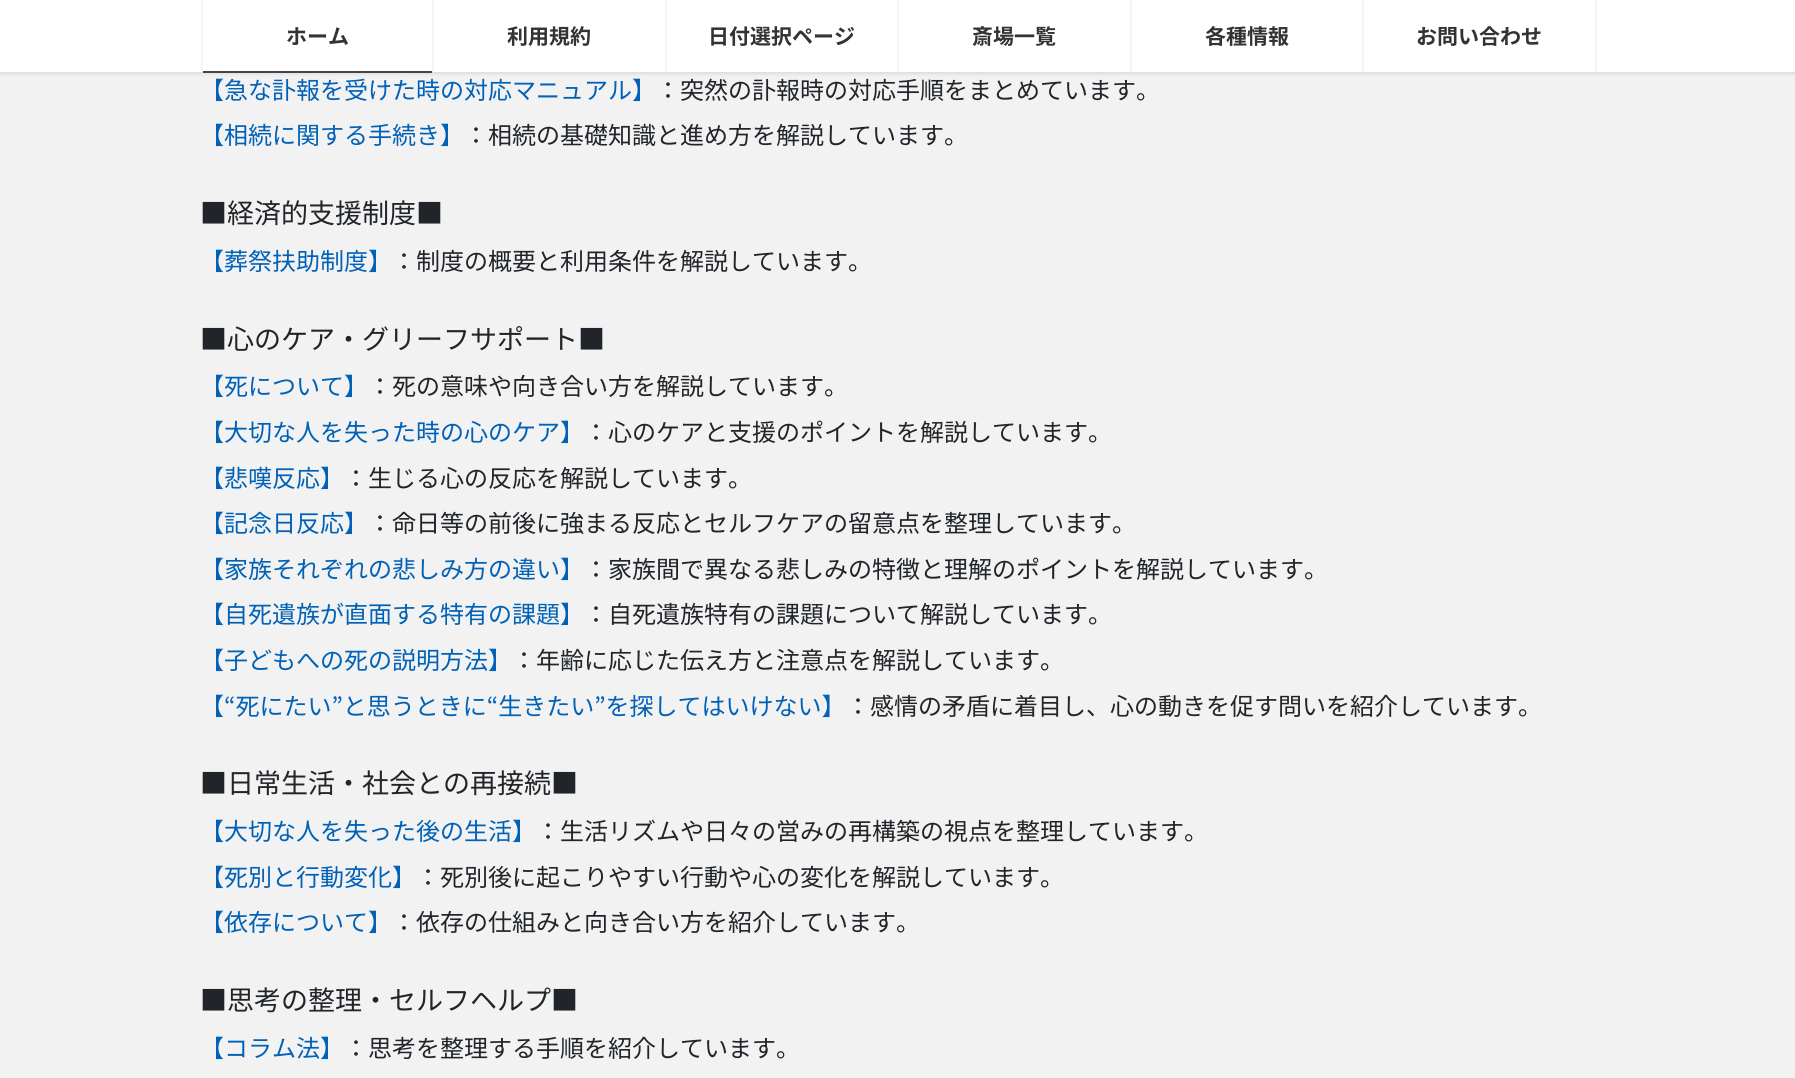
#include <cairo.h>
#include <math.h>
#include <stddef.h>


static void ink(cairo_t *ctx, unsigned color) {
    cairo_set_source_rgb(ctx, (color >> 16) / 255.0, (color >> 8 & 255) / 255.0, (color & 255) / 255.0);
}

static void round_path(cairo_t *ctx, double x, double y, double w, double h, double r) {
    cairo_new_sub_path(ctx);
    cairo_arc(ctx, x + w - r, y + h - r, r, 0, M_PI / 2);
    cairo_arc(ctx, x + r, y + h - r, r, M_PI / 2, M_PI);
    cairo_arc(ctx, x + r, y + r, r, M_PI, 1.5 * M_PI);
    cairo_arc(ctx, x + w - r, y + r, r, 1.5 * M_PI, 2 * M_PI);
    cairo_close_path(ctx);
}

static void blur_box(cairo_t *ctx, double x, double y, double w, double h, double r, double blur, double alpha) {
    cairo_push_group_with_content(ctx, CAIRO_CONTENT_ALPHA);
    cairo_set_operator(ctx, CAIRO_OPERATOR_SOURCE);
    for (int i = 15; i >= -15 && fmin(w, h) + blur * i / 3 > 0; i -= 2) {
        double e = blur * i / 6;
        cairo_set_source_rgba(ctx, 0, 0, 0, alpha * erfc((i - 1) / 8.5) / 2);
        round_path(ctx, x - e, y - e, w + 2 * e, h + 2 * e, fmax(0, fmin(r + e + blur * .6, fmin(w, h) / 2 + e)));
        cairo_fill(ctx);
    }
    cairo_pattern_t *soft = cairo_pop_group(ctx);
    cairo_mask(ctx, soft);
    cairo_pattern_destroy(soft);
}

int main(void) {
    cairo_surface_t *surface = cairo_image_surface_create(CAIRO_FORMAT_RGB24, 1795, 1078);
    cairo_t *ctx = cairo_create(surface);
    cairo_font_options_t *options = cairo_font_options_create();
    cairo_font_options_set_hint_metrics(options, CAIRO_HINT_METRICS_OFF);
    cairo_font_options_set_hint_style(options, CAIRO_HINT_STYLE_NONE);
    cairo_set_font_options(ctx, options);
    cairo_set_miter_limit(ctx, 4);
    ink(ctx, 0xF2F2F2);
    cairo_paint(ctx);
    ink(ctx, 0x000000);
    blur_box(ctx, 0, 2, 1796, 72, 0, 2, 0.1);
    ink(ctx, 0xFFFFFF);
    cairo_rectangle(ctx, 0, 0, 1795, 72);
    cairo_fill(ctx);
    ink(ctx, 0xF5F5F5);
    cairo_rectangle(ctx, 201, 0, 2, 72);
    cairo_fill(ctx);
    cairo_select_font_face(ctx, "Noto Sans JP", CAIRO_FONT_SLANT_NORMAL, CAIRO_FONT_WEIGHT_BOLD);
    cairo_set_font_size(ctx, 21);
    ink(ctx, 0x333333);
    cairo_move_to(ctx, 286, 44);
    cairo_show_text(ctx, "ホーム");
    ink(ctx, 0x444444);
    cairo_rectangle(ctx, 203, 71, 229, 2);
    cairo_fill(ctx);
    ink(ctx, 0xF5F5F5);
    cairo_rectangle(ctx, 432, 0, 2, 72);
    cairo_fill(ctx);
    ink(ctx, 0x333333);
    cairo_move_to(ctx, 507, 44);
    cairo_show_text(ctx, "利用規約");
    ink(ctx, 0xF5F5F5);
    cairo_rectangle(ctx, 665, 0, 2, 72);
    cairo_fill(ctx);
    ink(ctx, 0x333333);
    cairo_move_to(ctx, 708, 44);
    cairo_show_text(ctx, "日付選択ページ");
    ink(ctx, 0xF5F5F5);
    cairo_rectangle(ctx, 897, 0, 2, 72);
    cairo_fill(ctx);
    ink(ctx, 0x333333);
    cairo_move_to(ctx, 972, 44);
    cairo_show_text(ctx, "斎場一覧");
    ink(ctx, 0xF5F5F5);
    cairo_rectangle(ctx, 1130, 0, 2, 72);
    cairo_fill(ctx);
    ink(ctx, 0x333333);
    cairo_move_to(ctx, 1205, 44);
    cairo_show_text(ctx, "各種情報");
    ink(ctx, 0xF5F5F5);
    cairo_rectangle(ctx, 1595, 0, 2, 72);
    cairo_fill(ctx);
    cairo_rectangle(ctx, 1362, 0, 2, 72);
    cairo_fill(ctx);
    ink(ctx, 0x333333);
    cairo_move_to(ctx, 1416, 44);
    cairo_show_text(ctx, "お問い合わせ");
    cairo_select_font_face(ctx, "Noto Sans JP", CAIRO_FONT_SLANT_NORMAL, CAIRO_FONT_WEIGHT_NORMAL);
    cairo_set_font_size(ctx, 24);
    ink(ctx, 0x0061B7);
    cairo_move_to(ctx, 200, 99);
    cairo_show_text(ctx, "【急な訃報を受けた時の対応マニュアル】");
    ink(ctx, 0x212529);
    cairo_move_to(ctx, 656, 99);
    cairo_show_text(ctx, "：突然の訃報時の対応手順をまとめています。");
    ink(ctx, 0x0061B7);
    cairo_move_to(ctx, 200, 144);
    cairo_show_text(ctx, "【相続に関する手続き】");
    ink(ctx, 0x212529);
    cairo_move_to(ctx, 464, 144);
    cairo_show_text(ctx, "：相続の基礎知識と進め方を解説しています。");
    cairo_set_font_size(ctx, 27);
    cairo_move_to(ctx, 200, 223);
    cairo_show_text(ctx, "■経済的支援制度■");
    cairo_set_font_size(ctx, 24);
    ink(ctx, 0x0061B7);
    cairo_move_to(ctx, 200, 270);
    cairo_show_text(ctx, "【葬祭扶助制度】");
    ink(ctx, 0x212529);
    cairo_move_to(ctx, 392, 270);
    cairo_show_text(ctx, "：制度の概要と利用条件を解説しています。");
    cairo_set_font_size(ctx, 27);
    cairo_move_to(ctx, 200, 349);
    cairo_show_text(ctx, "■心のケア・グリーフサポート■");
    cairo_set_font_size(ctx, 24);
    ink(ctx, 0x0061B7);
    cairo_move_to(ctx, 200, 395);
    cairo_show_text(ctx, "【死について】");
    ink(ctx, 0x212529);
    cairo_move_to(ctx, 368, 395);
    cairo_show_text(ctx, "：死の意味や向き合い方を解説しています。");
    ink(ctx, 0x0061B7);
    cairo_move_to(ctx, 200, 441);
    cairo_show_text(ctx, "【大切な人を失った時の心のケア】");
    ink(ctx, 0x212529);
    cairo_move_to(ctx, 584, 441);
    cairo_show_text(ctx, "：心のケアと支援のポイントを解説しています。");
    ink(ctx, 0x0061B7);
    cairo_move_to(ctx, 200, 487);
    cairo_show_text(ctx, "【悲嘆反応】");
    ink(ctx, 0x212529);
    cairo_move_to(ctx, 344, 487);
    cairo_show_text(ctx, "：生じる心の反応を解説しています。");
    ink(ctx, 0x0061B7);
    cairo_move_to(ctx, 200, 532);
    cairo_show_text(ctx, "【記念日反応】");
    ink(ctx, 0x212529);
    cairo_move_to(ctx, 368, 532);
    cairo_show_text(ctx, "：命日等の前後に強まる反応とセルフケアの留意点を整理しています。");
    ink(ctx, 0x0061B7);
    cairo_move_to(ctx, 200, 578);
    cairo_show_text(ctx, "【家族それぞれの悲しみ方の違い】");
    ink(ctx, 0x212529);
    cairo_move_to(ctx, 584, 578);
    cairo_show_text(ctx, "：家族間で異なる悲しみの特徴と理解のポイントを解説しています。");
    ink(ctx, 0x0061B7);
    cairo_move_to(ctx, 200, 623);
    cairo_show_text(ctx, "【自死遺族が直面する特有の課題】");
    ink(ctx, 0x212529);
    cairo_move_to(ctx, 584, 623);
    cairo_show_text(ctx, "：自死遺族特有の課題について解説しています。");
    ink(ctx, 0x0061B7);
    cairo_move_to(ctx, 200, 669);
    cairo_show_text(ctx, "【子どもへの死の説明方法】");
    ink(ctx, 0x212529);
    cairo_move_to(ctx, 512, 669);
    cairo_show_text(ctx, "：年齢に応じた伝え方と注意点を解説しています。");
    ink(ctx, 0x0061B7);
    cairo_move_to(ctx, 200, 715);
    cairo_show_text(ctx, "【“死にたい”と思うときに“生きたい”を探してはいけない】");
    ink(ctx, 0x212529);
    cairo_move_to(ctx, 846, 715);
    cairo_show_text(ctx, "：感情の矛盾に着目し、心の動きを促す問いを紹介しています。");
    cairo_set_font_size(ctx, 27);
    cairo_move_to(ctx, 200, 793);
    cairo_show_text(ctx, "■日常生活・社会との再接続■");
    cairo_set_font_size(ctx, 24);
    ink(ctx, 0x0061B7);
    cairo_move_to(ctx, 200, 840);
    cairo_show_text(ctx, "【大切な人を失った後の生活】");
    ink(ctx, 0x212529);
    cairo_move_to(ctx, 536, 840);
    cairo_show_text(ctx, "：生活リズムや日々の営みの再構築の視点を整理しています。");
    ink(ctx, 0x0061B7);
    cairo_move_to(ctx, 200, 886);
    cairo_show_text(ctx, "【死別と行動変化】");
    ink(ctx, 0x212529);
    cairo_move_to(ctx, 416, 886);
    cairo_show_text(ctx, "：死別後に起こりやすい行動や心の変化を解説しています。");
    ink(ctx, 0x0061B7);
    cairo_move_to(ctx, 200, 931);
    cairo_show_text(ctx, "【依存について】");
    ink(ctx, 0x212529);
    cairo_move_to(ctx, 392, 931);
    cairo_show_text(ctx, "：依存の仕組みと向き合い方を紹介しています。");
    cairo_set_font_size(ctx, 27);
    cairo_move_to(ctx, 200, 1010);
    cairo_show_text(ctx, "■思考の整理・セルフヘルプ■");
    cairo_set_font_size(ctx, 24);
    ink(ctx, 0x0061B7);
    cairo_move_to(ctx, 200, 1057);
    cairo_show_text(ctx, "【コラム法】");
    ink(ctx, 0x212529);
    cairo_move_to(ctx, 344, 1057);
    cairo_show_text(ctx, "：思考を整理する手順を紹介しています。");
    cairo_surface_write_to_png(surface, "image.png");
    cairo_font_options_destroy(options);
    cairo_destroy(ctx);
    cairo_surface_destroy(surface);
    return 0;
}
